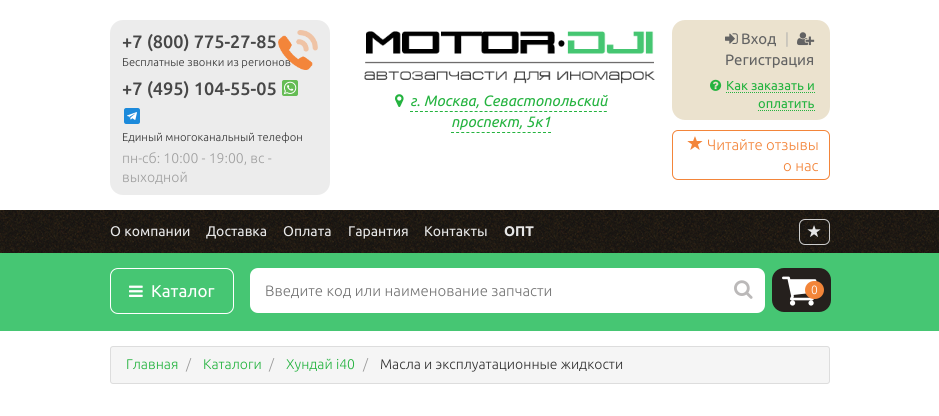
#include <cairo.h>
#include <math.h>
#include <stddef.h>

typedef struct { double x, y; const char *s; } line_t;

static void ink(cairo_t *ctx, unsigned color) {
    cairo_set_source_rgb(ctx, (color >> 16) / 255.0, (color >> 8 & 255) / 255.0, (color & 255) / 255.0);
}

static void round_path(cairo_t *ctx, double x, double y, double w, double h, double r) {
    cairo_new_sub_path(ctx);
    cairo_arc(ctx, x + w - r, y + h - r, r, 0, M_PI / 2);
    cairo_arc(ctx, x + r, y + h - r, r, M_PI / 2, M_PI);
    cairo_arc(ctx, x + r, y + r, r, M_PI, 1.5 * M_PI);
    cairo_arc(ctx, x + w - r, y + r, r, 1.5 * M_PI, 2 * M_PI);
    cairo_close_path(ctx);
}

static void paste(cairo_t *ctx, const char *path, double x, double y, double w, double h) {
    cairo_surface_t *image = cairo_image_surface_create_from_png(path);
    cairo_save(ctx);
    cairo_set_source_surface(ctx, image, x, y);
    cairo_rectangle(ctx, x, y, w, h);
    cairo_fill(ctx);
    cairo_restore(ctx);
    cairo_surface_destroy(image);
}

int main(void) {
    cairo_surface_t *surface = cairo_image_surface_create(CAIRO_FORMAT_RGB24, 939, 416);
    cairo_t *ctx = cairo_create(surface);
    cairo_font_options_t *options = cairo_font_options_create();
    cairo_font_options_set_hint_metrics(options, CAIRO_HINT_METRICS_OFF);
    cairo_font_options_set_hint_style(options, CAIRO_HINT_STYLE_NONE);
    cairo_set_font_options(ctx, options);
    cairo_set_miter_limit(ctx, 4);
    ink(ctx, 0xFFFFFF);
    cairo_paint(ctx);
    ink(ctx, 0xECECEC);
    round_path(ctx, 110, 20, 220, 175, 13);
    cairo_fill(ctx);
    cairo_select_font_face(ctx, "Ubuntu Medium", CAIRO_FONT_SLANT_NORMAL, CAIRO_FONT_WEIGHT_NORMAL);
    cairo_set_font_size(ctx, 18);
    ink(ctx, 0x474747);
    cairo_move_to(ctx, 122, 48);
    cairo_show_text(ctx, "+7 (800) 775-27-85");
    cairo_select_font_face(ctx, "Ubuntu Light", CAIRO_FONT_SLANT_NORMAL, CAIRO_FONT_WEIGHT_NORMAL);
    cairo_set_font_size(ctx, 11.25);
    ink(ctx, 0x303030);
    cairo_move_to(ctx, 122, 66);
    cairo_show_text(ctx, "Бесплатные звонки из регионов");
    paste(ctx, "media/1.png", 278, 30, 40, 40);
    cairo_select_font_face(ctx, "Ubuntu Medium", CAIRO_FONT_SLANT_NORMAL, CAIRO_FONT_WEIGHT_NORMAL);
    cairo_set_font_size(ctx, 18);
    ink(ctx, 0x474747);
    cairo_move_to(ctx, 122, 95);
    cairo_show_text(ctx, "+7 (495) 104-55-05");
    paste(ctx, "media/2.png", 282, 80, 16, 16);
    paste(ctx, "media/3.png", 124, 108, 16, 16);
    cairo_select_font_face(ctx, "Ubuntu Light", CAIRO_FONT_SLANT_NORMAL, CAIRO_FONT_WEIGHT_NORMAL);
    cairo_set_font_size(ctx, 11.25);
    ink(ctx, 0x303030);
    cairo_move_to(ctx, 122, 141);
    cairo_show_text(ctx, "Единый многоканальный телефон");
    cairo_set_font_size(ctx, 14);
    ink(ctx, 0xA0A0A0);
    cairo_move_to(ctx, 122, 163);
    cairo_show_text(ctx, "пн-сб: 10:00 - 19:00, вс -");
    cairo_move_to(ctx, 122, 182);
    cairo_show_text(ctx, "выходной");
    paste(ctx, "media/4.png", 364, 31, 291, 53);
    paste(ctx, "media/5.png", 395, 94, 9, 13);
    cairo_select_font_face(ctx, "Ubuntu", CAIRO_FONT_SLANT_ITALIC, CAIRO_FONT_WEIGHT_NORMAL);
    cairo_set_font_size(ctx, 15);
    ink(ctx, 0x24B33F);
    cairo_move_to(ctx, 410, 106);
    cairo_show_text(ctx, "г. Москва, Севастопольский");
    cairo_new_path(ctx);
    cairo_move_to(ctx, 410, 111.5);
    cairo_line_to(ctx, 607, 111.5);
    cairo_set_line_width(ctx, 1);
    cairo_set_dash(ctx, (double[]){3, 1.97}, 2, 0);
    cairo_stroke(ctx);
    cairo_move_to(ctx, 451, 127);
    cairo_show_text(ctx, "проспект, 5к1");
    cairo_new_path(ctx);
    cairo_move_to(ctx, 451, 132.5);
    cairo_line_to(ctx, 551, 132.5);
    cairo_set_dash(ctx, (double[]){3, 2.11}, 2, 0);
    cairo_stroke(ctx);
    ink(ctx, 0xEBE2CE);
    round_path(ctx, 672, 20, 158, 100, 13);
    cairo_fill(ctx);
    paste(ctx, "media/6.png", 725, 33, 13, 11);
    cairo_select_font_face(ctx, "Ubuntu", CAIRO_FONT_SLANT_NORMAL, CAIRO_FONT_WEIGHT_NORMAL);
    ink(ctx, 0x636363);
    cairo_move_to(ctx, 741, 44);
    cairo_show_text(ctx, "Вход");
    cairo_select_font_face(ctx, "Ubuntu Light", CAIRO_FONT_SLANT_NORMAL, CAIRO_FONT_WEIGHT_NORMAL);
    ink(ctx, 0xA9A9A9);
    cairo_move_to(ctx, 785, 44);
    cairo_show_text(ctx, "|");
    paste(ctx, "media/7.png", 797, 32, 18, 14);
    cairo_select_font_face(ctx, "Ubuntu", CAIRO_FONT_SLANT_NORMAL, CAIRO_FONT_WEIGHT_NORMAL);
    ink(ctx, 0x636363);
    cairo_move_to(ctx, 725, 65);
    cairo_show_text(ctx, "Регистрация");
    paste(ctx, "media/8.png", 710, 79, 12, 12);
    cairo_set_font_size(ctx, 13);
    ink(ctx, 0x24B33F);
    cairo_move_to(ctx, 726, 90);
    cairo_show_text(ctx, "Как заказать и");
    cairo_new_path(ctx);
    cairo_move_to(ctx, 726, 92.5);
    cairo_line_to(ctx, 815, 92.5);
    cairo_set_dash(ctx, (double[]){1, 1}, 2, 0);
    cairo_stroke(ctx);
    cairo_move_to(ctx, 758, 108);
    cairo_show_text(ctx, "оплатить");
    cairo_new_path(ctx);
    cairo_move_to(ctx, 758, 110.5);
    cairo_line_to(ctx, 815, 110.5);
    cairo_stroke(ctx);
    round_path(ctx, 672.5, 130.5, 157, 49, 5.5);
    ink(ctx, 0xF3853A);
    cairo_set_dash(ctx, NULL, 0, 0);
    cairo_stroke(ctx);
    paste(ctx, "media/9.png", 687, 136, 16, 14);
    cairo_select_font_face(ctx, "Ubuntu Light", CAIRO_FONT_SLANT_NORMAL, CAIRO_FONT_WEIGHT_NORMAL);
    cairo_set_font_size(ctx, 15);
    cairo_move_to(ctx, 707, 150);
    cairo_show_text(ctx, "Читайте отзывы");
    cairo_move_to(ctx, 783, 171);
    cairo_show_text(ctx, "о нас");
    paste(ctx, "media/10.png", 0, 210, 939, 43);
    cairo_select_font_face(ctx, "Ubuntu", CAIRO_FONT_SLANT_NORMAL, CAIRO_FONT_WEIGHT_NORMAL);
    cairo_set_font_size(ctx, 14);
    ink(ctx, 0xE7E7E7);
    {
        static const line_t items[] = {
            {110, 236, "О компании"},
            {206, 236, "Доставка"},
            {283, 236, "Оплата"},
            {348, 236, "Гарантия"},
            {424, 236, "Контакты"},
        };
        for (size_t i = 0; i < sizeof items / sizeof *items; i++) {
            cairo_move_to(ctx, items[i].x, items[i].y);
            cairo_show_text(ctx, items[i].s);
        }
    }
    cairo_select_font_face(ctx, "Ubuntu", CAIRO_FONT_SLANT_NORMAL, CAIRO_FONT_WEIGHT_BOLD);
    cairo_move_to(ctx, 504, 236);
    cairo_show_text(ctx, "ОПТ");
    round_path(ctx, 799.5, 219.5, 30, 25, 5.5);
    ink(ctx, 0xCCCCCC);
    cairo_stroke(ctx);
    paste(ctx, "media/11.png", 807, 225, 14, 12);
    ink(ctx, 0x46C673);
    cairo_rectangle(ctx, 0, 253, 939, 78);
    cairo_fill(ctx);
    round_path(ctx, 110.5, 268.5, 123, 45, 7.5);
    ink(ctx, 0xFFFFFF);
    cairo_stroke(ctx);
    paste(ctx, "media/12.png", 129, 285, 14, 12);
    cairo_select_font_face(ctx, "Ubuntu", CAIRO_FONT_SLANT_NORMAL, CAIRO_FONT_WEIGHT_NORMAL);
    cairo_set_font_size(ctx, 17);
    cairo_move_to(ctx, 151, 297);
    cairo_show_text(ctx, "Каталог");
    round_path(ctx, 250, 268, 515, 45, 8);
    cairo_fill(ctx);
    cairo_select_font_face(ctx, "Ubuntu Light", CAIRO_FONT_SLANT_NORMAL, CAIRO_FONT_WEIGHT_NORMAL);
    cairo_set_font_size(ctx, 15);
    ink(ctx, 0x757575);
    cairo_move_to(ctx, 265, 296);
    cairo_show_text(ctx, "Введите код или наименование запчасти");
    paste(ctx, "media/13.png", 734, 280, 19, 19);
    ink(ctx, 0x25201D);
    round_path(ctx, 772, 268, 59, 44, 12);
    cairo_fill(ctx);
    paste(ctx, "media/14.png", 782, 276, 35, 30);
    ink(ctx, 0xF38539);
    round_path(ctx, 805, 281, 19, 18, 9);
    cairo_fill(ctx);
    cairo_set_font_size(ctx, 12);
    ink(ctx, 0xFFFFFF);
    cairo_move_to(ctx, 811, 294);
    cairo_show_text(ctx, "0");
    ink(ctx, 0xF5F5F5);
    round_path(ctx, 110.5, 346.5, 719, 37, 2.5);
    cairo_fill_preserve(ctx);
    ink(ctx, 0xDDDDDD);
    cairo_stroke(ctx);
    cairo_set_font_size(ctx, 14);
    ink(ctx, 0x24B33F);
    cairo_move_to(ctx, 126, 369);
    cairo_show_text(ctx, "Главная");
    ink(ctx, 0x999999);
    cairo_move_to(ctx, 186, 369);
    cairo_show_text(ctx, "/");
    ink(ctx, 0x24B33F);
    cairo_move_to(ctx, 203, 369);
    cairo_show_text(ctx, "Каталоги");
    ink(ctx, 0x999999);
    cairo_move_to(ctx, 269, 369);
    cairo_show_text(ctx, "/");
    ink(ctx, 0x24B33F);
    cairo_move_to(ctx, 286, 369);
    cairo_show_text(ctx, "Хундай i40");
    ink(ctx, 0x999999);
    cairo_move_to(ctx, 363, 369);
    cairo_show_text(ctx, "/");
    ink(ctx, 0x303030);
    cairo_move_to(ctx, 380, 369);
    cairo_show_text(ctx, "Масла и эксплуатационные жидкости");
    cairo_surface_write_to_png(surface, "image.png");
    cairo_font_options_destroy(options);
    cairo_destroy(ctx);
    cairo_surface_destroy(surface);
    return 0;
}
